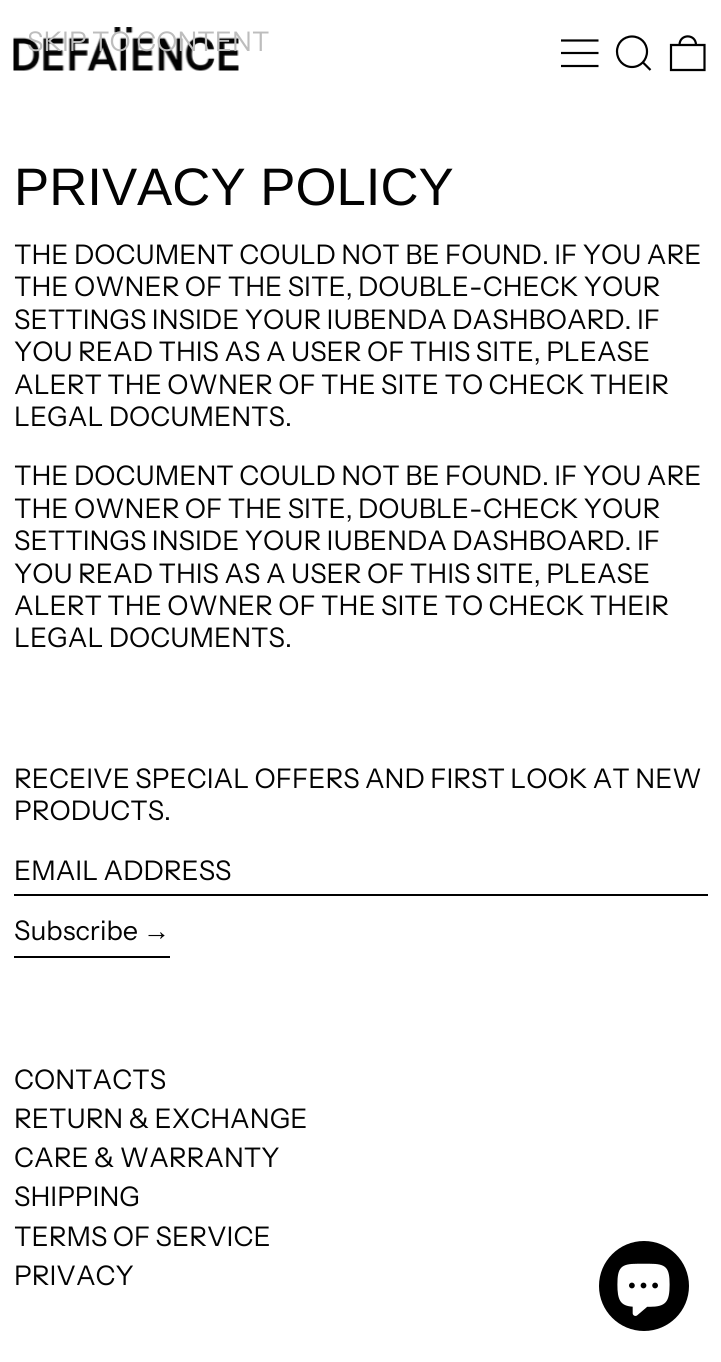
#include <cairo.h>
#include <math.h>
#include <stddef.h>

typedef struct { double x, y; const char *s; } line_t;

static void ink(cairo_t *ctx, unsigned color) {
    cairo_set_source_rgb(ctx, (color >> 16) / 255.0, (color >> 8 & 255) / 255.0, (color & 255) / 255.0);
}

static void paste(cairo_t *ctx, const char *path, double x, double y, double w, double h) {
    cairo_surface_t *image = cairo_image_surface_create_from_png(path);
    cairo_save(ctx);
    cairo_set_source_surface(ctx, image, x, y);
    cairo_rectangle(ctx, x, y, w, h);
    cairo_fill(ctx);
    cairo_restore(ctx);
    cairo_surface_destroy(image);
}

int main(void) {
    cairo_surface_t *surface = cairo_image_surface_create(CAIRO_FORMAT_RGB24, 721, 1362);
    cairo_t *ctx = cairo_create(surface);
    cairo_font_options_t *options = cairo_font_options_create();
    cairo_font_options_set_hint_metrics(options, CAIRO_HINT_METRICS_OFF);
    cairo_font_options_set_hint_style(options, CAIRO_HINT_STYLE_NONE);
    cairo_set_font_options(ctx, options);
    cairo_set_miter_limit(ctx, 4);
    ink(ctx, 0xFFFFFF);
    cairo_paint(ctx);
    paste(ctx, "media/1.png", 13, 27, 226, 44);
    cairo_new_path(ctx);
    cairo_move_to(ctx, 561, 40.5);
    cairo_line_to(ctx, 598.5, 40.5);
    cairo_move_to(ctx, 561, 53);
    cairo_line_to(ctx, 598.5, 53);
    cairo_move_to(ctx, 561, 66);
    cairo_line_to(ctx, 598.5, 66);
    ink(ctx, 0x000000);
    cairo_set_line_width(ctx, 2.2);
    cairo_stroke(ctx);
    cairo_new_path(ctx);
    cairo_move_to(ctx, 617, 51.5);
    cairo_curve_to(ctx, 617, 60, 623.5, 67, 632, 67);
    cairo_curve_to(ctx, 640.5, 67, 647, 60, 647, 51.5);
    cairo_curve_to(ctx, 647, 43, 640.5, 36.5, 632, 36.5);
    cairo_curve_to(ctx, 623.5, 36.5, 617, 43, 617, 51.5);
    cairo_close_path(ctx);
    cairo_move_to(ctx, 643, 62.5);
    cairo_line_to(ctx, 650.5, 70);
    cairo_stroke(ctx);
    cairo_new_path(ctx);
    cairo_move_to(ctx, 671, 45);
    cairo_line_to(ctx, 704.5, 45);
    cairo_line_to(ctx, 704.5, 70);
    cairo_line_to(ctx, 671, 70);
    cairo_close_path(ctx);
    cairo_move_to(ctx, 696, 45);
    cairo_curve_to(ctx, 696, 33.5, 679.5, 33.5, 679.5, 45);
    cairo_stroke(ctx);
    cairo_select_font_face(ctx, "Instrument Sans", CAIRO_FONT_SLANT_NORMAL, CAIRO_FONT_WEIGHT_NORMAL);
    cairo_set_font_size(ctx, 27);
    ink(ctx, 0xBDBDBD);
    cairo_move_to(ctx, 27, 51);
    cairo_show_text(ctx, "SKIP TO CONTENT");
    cairo_select_font_face(ctx, "Liberation Sans", CAIRO_FONT_SLANT_NORMAL, CAIRO_FONT_WEIGHT_NORMAL);
    cairo_set_font_size(ctx, 52.75);
    ink(ctx, 0x030303);
    cairo_move_to(ctx, 14, 205);
    cairo_show_text(ctx, "PRIVACY POLICY");
    cairo_select_font_face(ctx, "Instrument Sans", CAIRO_FONT_SLANT_NORMAL, CAIRO_FONT_WEIGHT_NORMAL);
    cairo_set_font_size(ctx, 27);
    {
        static const line_t items[] = {
            {14, 264, "THE DOCUMENT COULD NOT BE FOUND. IF YOU ARE"},
            {14, 296, "THE OWNER OF THE SITE, DOUBLE-CHECK YOUR"},
            {14, 329, "SETTINGS INSIDE YOUR IUBENDA DASHBOARD. IF"},
            {14, 361, "YOU READ THIS AS A USER OF THIS SITE, PLEASE"},
            {14, 394, "ALERT THE OWNER OF THE SITE TO CHECK THEIR"},
            {14, 426, "LEGAL DOCUMENTS."},
            {14, 485, "THE DOCUMENT COULD NOT BE FOUND. IF YOU ARE"},
            {14, 518, "THE OWNER OF THE SITE, DOUBLE-CHECK YOUR"},
            {14, 550, "SETTINGS INSIDE YOUR IUBENDA DASHBOARD. IF"},
            {14, 583, "YOU READ THIS AS A USER OF THIS SITE, PLEASE"},
            {14, 615, "ALERT THE OWNER OF THE SITE TO CHECK THEIR"},
            {14, 647, "LEGAL DOCUMENTS."},
            {14, 788, "RECEIVE SPECIAL OFFERS AND FIRST LOOK AT NEW"},
            {14, 820, "PRODUCTS."},
        };
        for (size_t i = 0; i < sizeof items / sizeof *items; i++) {
            cairo_move_to(ctx, items[i].x, items[i].y);
            cairo_show_text(ctx, items[i].s);
        }
    }
    ink(ctx, 0x000000);
    cairo_rectangle(ctx, 14, 894, 694, 2);
    cairo_fill(ctx);
    ink(ctx, 0x030303);
    cairo_move_to(ctx, 14, 880);
    cairo_show_text(ctx, "EMAIL ADDRESS");
    ink(ctx, 0x000000);
    cairo_rectangle(ctx, 14, 956, 156, 2);
    cairo_fill(ctx);
    ink(ctx, 0x030303);
    cairo_move_to(ctx, 14, 940);
    cairo_show_text(ctx, "Subscribe");
    cairo_select_font_face(ctx, "Liberation Sans", CAIRO_FONT_SLANT_NORMAL, CAIRO_FONT_WEIGHT_NORMAL);
    cairo_move_to(ctx, 143, 940);
    cairo_show_text(ctx, "→");
    cairo_select_font_face(ctx, "Instrument Sans", CAIRO_FONT_SLANT_NORMAL, CAIRO_FONT_WEIGHT_NORMAL);
    {
        static const line_t items[] = {
            {14, 1089, "CONTACTS"},
            {14, 1128, "RETURN & EXCHANGE"},
            {14, 1167, "CARE & WARRANTY"},
            {14, 1206, "SHIPPING"},
            {14, 1246, "TERMS OF SERVICE"},
            {14, 1285, "PRIVACY"},
        };
        for (size_t i = 0; i < sizeof items / sizeof *items; i++) {
            cairo_move_to(ctx, items[i].x, items[i].y);
            cairo_show_text(ctx, items[i].s);
        }
    }
    ink(ctx, 0x000000);
    cairo_new_path(ctx);
    cairo_arc(ctx, 644, 1286, 45, 0, 2 * M_PI);
    cairo_fill(ctx);
    paste(ctx, "media/2.png", 617, 1263, 53, 53);
    cairo_surface_write_to_png(surface, "image.png");
    cairo_font_options_destroy(options);
    cairo_destroy(ctx);
    cairo_surface_destroy(surface);
    return 0;
}
